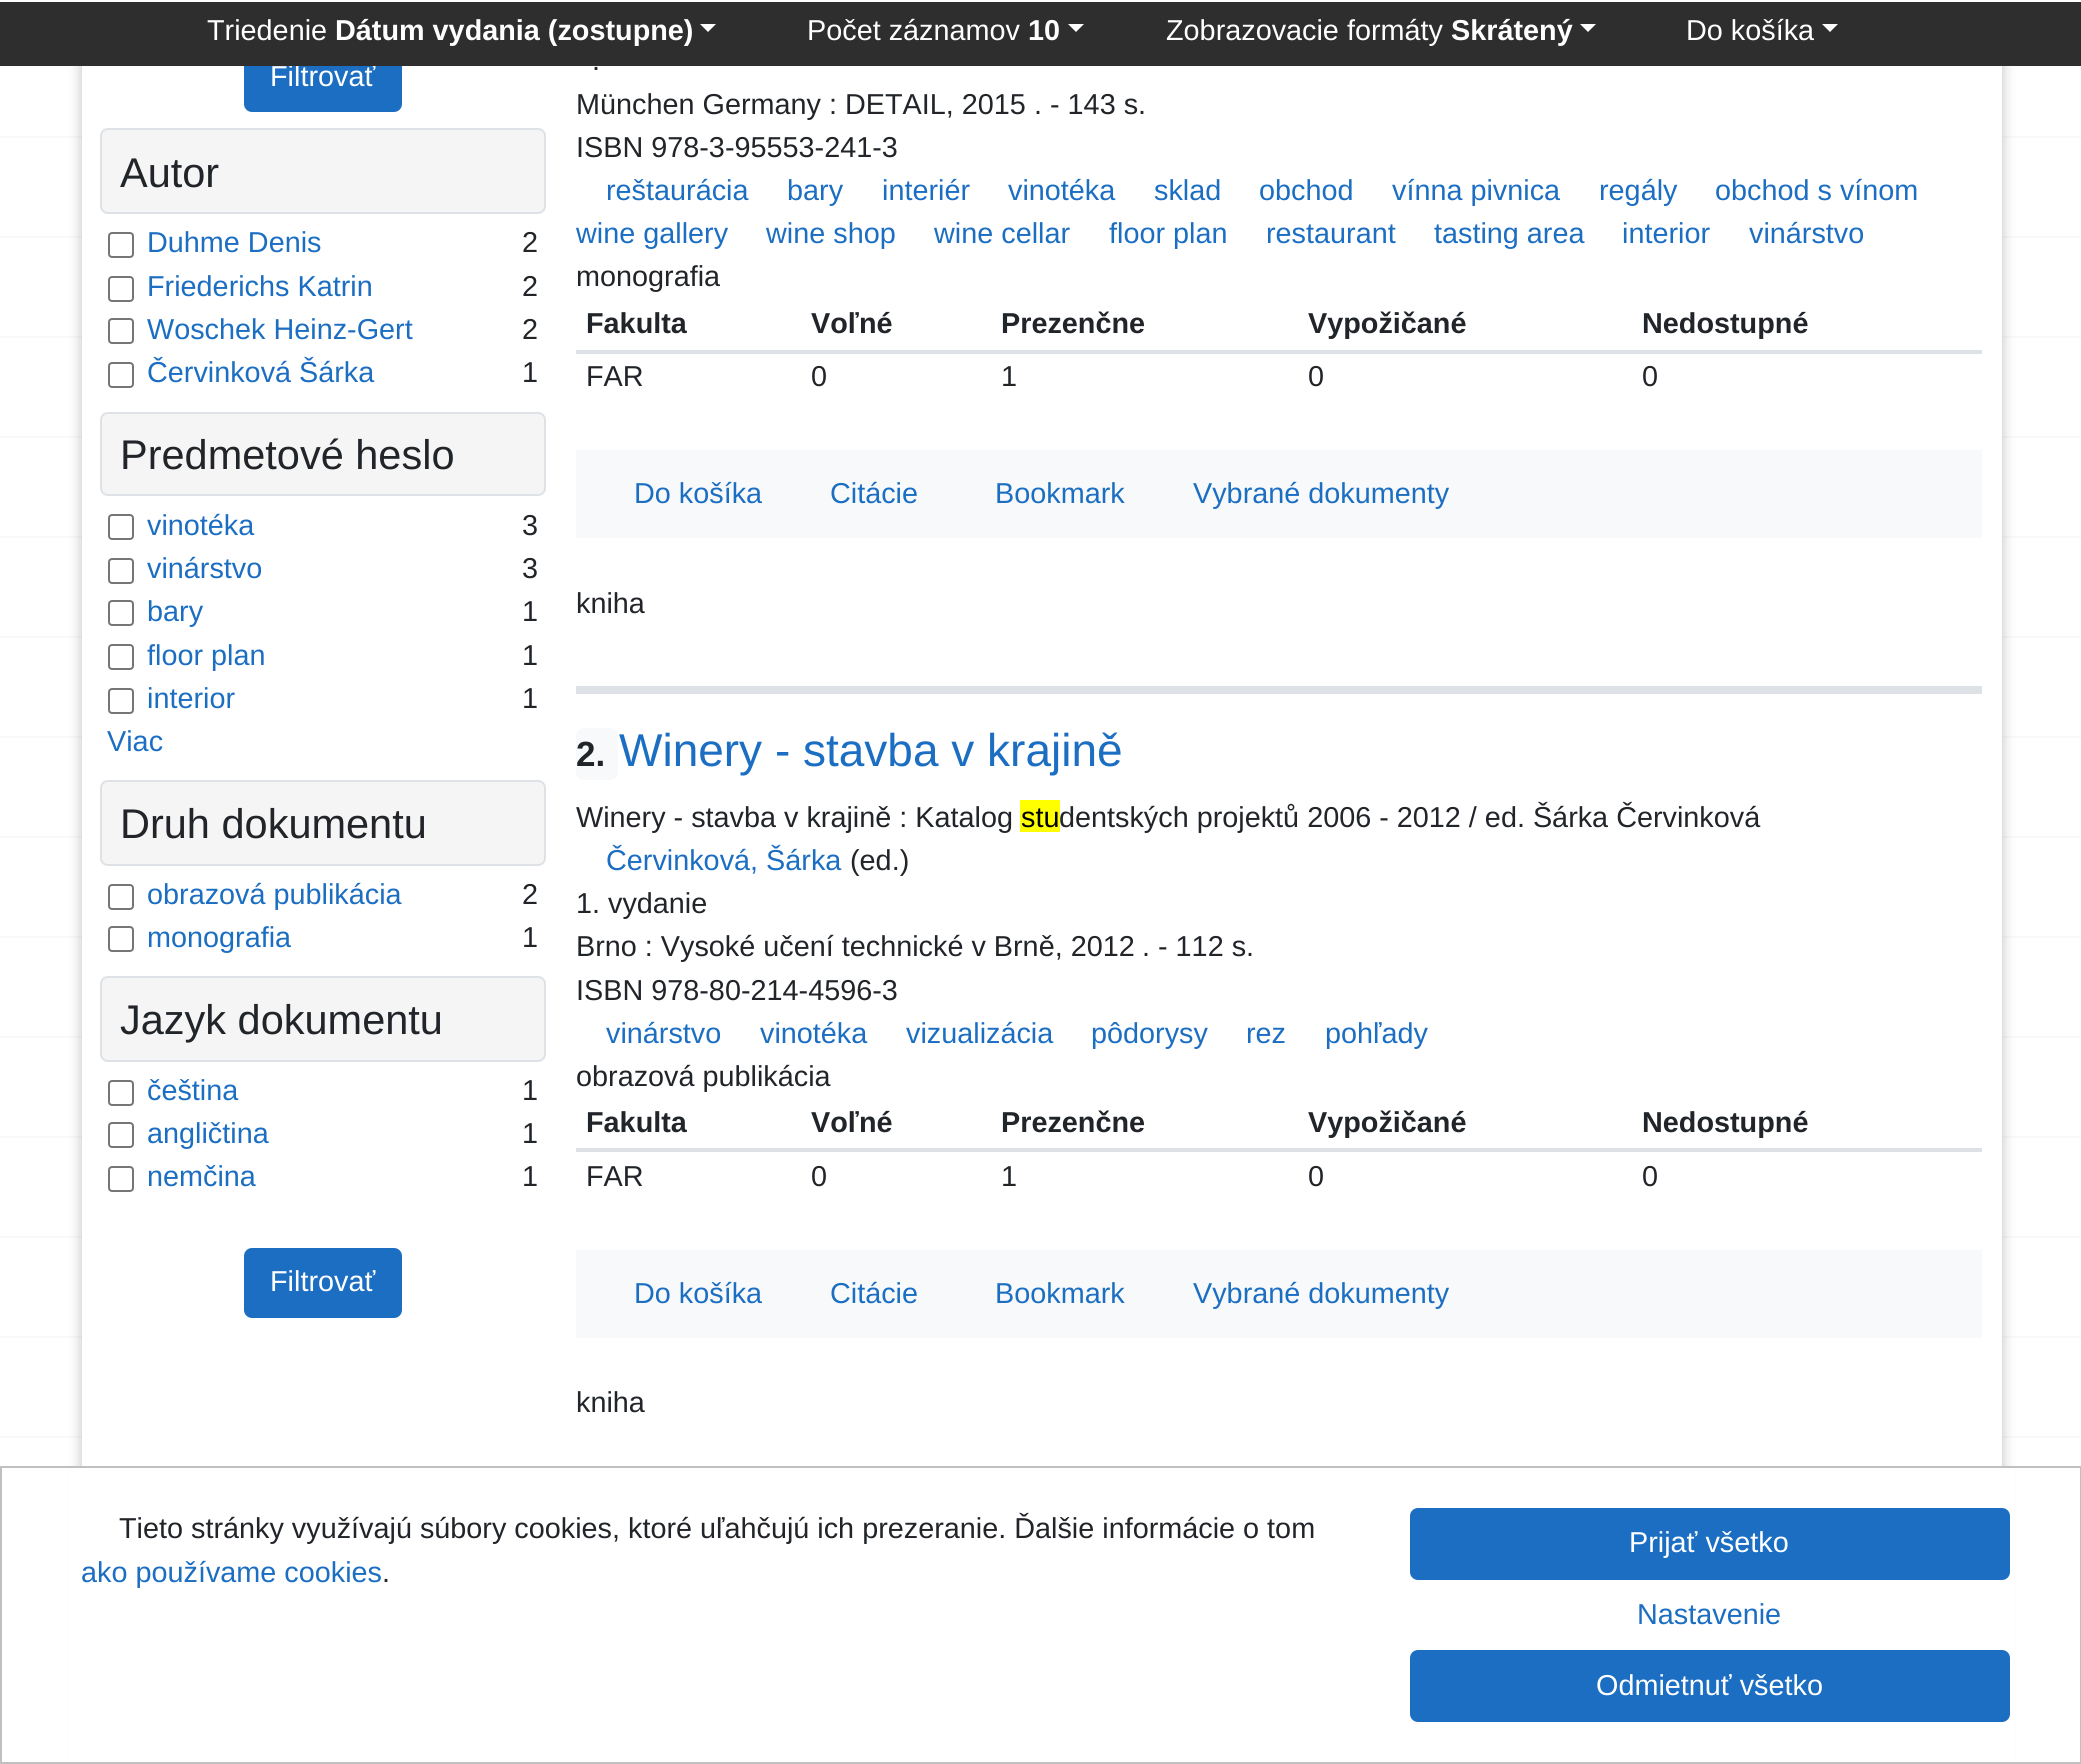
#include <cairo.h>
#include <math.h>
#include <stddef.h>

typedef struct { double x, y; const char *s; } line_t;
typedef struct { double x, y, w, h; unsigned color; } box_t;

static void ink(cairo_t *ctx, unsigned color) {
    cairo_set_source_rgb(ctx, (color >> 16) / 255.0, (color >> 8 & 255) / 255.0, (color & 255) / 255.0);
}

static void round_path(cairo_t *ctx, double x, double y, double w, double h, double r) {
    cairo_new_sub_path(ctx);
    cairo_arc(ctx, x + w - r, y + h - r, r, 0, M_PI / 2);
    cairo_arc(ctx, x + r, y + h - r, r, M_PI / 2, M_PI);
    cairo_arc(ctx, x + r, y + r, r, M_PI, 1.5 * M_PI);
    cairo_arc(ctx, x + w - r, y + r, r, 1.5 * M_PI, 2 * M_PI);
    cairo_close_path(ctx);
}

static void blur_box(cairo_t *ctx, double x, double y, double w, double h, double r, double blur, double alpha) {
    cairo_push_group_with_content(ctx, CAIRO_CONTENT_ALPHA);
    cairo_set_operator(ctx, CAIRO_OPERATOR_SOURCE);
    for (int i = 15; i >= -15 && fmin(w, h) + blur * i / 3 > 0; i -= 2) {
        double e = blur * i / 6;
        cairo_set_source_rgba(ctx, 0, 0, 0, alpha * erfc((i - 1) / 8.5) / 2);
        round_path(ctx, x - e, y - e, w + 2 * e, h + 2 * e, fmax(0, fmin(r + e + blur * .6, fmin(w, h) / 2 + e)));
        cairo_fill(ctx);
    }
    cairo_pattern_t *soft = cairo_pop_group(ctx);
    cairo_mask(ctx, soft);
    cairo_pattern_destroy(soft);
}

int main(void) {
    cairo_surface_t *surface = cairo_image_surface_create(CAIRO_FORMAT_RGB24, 2081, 1764);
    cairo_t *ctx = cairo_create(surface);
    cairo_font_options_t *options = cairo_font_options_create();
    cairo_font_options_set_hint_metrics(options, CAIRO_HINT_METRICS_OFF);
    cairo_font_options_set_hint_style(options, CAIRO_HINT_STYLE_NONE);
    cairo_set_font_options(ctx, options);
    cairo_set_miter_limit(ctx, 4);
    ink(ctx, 0xFFFFFF);
    cairo_paint(ctx);
    {
        static const box_t items[] = {
            {0, 136, 2081, 2, 0xF8F9FA},
            {0, 236, 2081, 2, 0xF8F9FA},
            {0, 336, 2081, 2, 0xF8F9FA},
            {0, 436, 2081, 2, 0xF8F9FA},
            {0, 536, 2081, 2, 0xF8F9FA},
            {0, 636, 2081, 2, 0xF8F9FA},
            {0, 736, 2081, 2, 0xF8F9FA},
            {0, 836, 2081, 2, 0xF8F9FA},
            {0, 936, 2081, 2, 0xF8F9FA},
            {0, 1036, 2081, 2, 0xF8F9FA},
            {0, 1136, 2081, 2, 0xF8F9FA},
            {0, 1236, 2081, 2, 0xF8F9FA},
            {0, 1336, 2081, 2, 0xF8F9FA},
            {0, 1436, 2081, 2, 0xF8F9FA},
        };
        for (size_t i = 0; i < sizeof items / sizeof *items; i++) {
            ink(ctx, items[i].color);
            cairo_rectangle(ctx, items[i].x, items[i].y, items[i].w, items[i].h);
            cairo_fill(ctx);
        }
    }
    ink(ctx, 0x000000);
    blur_box(ctx, 80, -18, 1924, 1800, 0, 6, 0.2);
    ink(ctx, 0xFFFFFF);
    cairo_rectangle(ctx, 82, 66, 1920, 1400);
    cairo_fill(ctx);
    ink(ctx, 0x1B6EC2);
    round_path(ctx, 245, 43, 156, 68, 7);
    cairo_fill_preserve(ctx);
    cairo_stroke(ctx);
    cairo_select_font_face(ctx, "Liberation Sans", CAIRO_FONT_SLANT_NORMAL, CAIRO_FONT_WEIGHT_NORMAL);
    cairo_set_font_size(ctx, 28.8);
    ink(ctx, 0xFFFFFF);
    cairo_move_to(ctx, 270, 86);
    cairo_show_text(ctx, "Filtrovať");
    ink(ctx, 0x2E2E2E);
    cairo_rectangle(ctx, 0, 2, 2081, 64);
    cairo_fill(ctx);
    ink(ctx, 0xFFFFFF);
    cairo_rectangle(ctx, 70, 0, 1944, 2);
    cairo_fill(ctx);
    cairo_move_to(ctx, 207, 40);
    cairo_show_text(ctx, "Triedenie");
    cairo_select_font_face(ctx, "Liberation Sans", CAIRO_FONT_SLANT_NORMAL, CAIRO_FONT_WEIGHT_BOLD);
    cairo_move_to(ctx, 335, 40);
    cairo_show_text(ctx, "Dátum vydania (zostupne)");
    cairo_new_path(ctx);
    cairo_move_to(ctx, 700, 24);
    cairo_line_to(ctx, 716, 24);
    cairo_line_to(ctx, 708, 32);
    cairo_close_path(ctx);
    cairo_fill(ctx);
    cairo_select_font_face(ctx, "Liberation Sans", CAIRO_FONT_SLANT_NORMAL, CAIRO_FONT_WEIGHT_NORMAL);
    cairo_move_to(ctx, 807, 40);
    cairo_show_text(ctx, "Počet záznamov");
    cairo_select_font_face(ctx, "Liberation Sans", CAIRO_FONT_SLANT_NORMAL, CAIRO_FONT_WEIGHT_BOLD);
    cairo_move_to(ctx, 1028, 40);
    cairo_show_text(ctx, "10");
    cairo_new_path(ctx);
    cairo_move_to(ctx, 1068, 24);
    cairo_line_to(ctx, 1084, 24);
    cairo_line_to(ctx, 1076, 32);
    cairo_close_path(ctx);
    cairo_fill(ctx);
    cairo_select_font_face(ctx, "Liberation Sans", CAIRO_FONT_SLANT_NORMAL, CAIRO_FONT_WEIGHT_NORMAL);
    cairo_move_to(ctx, 1166, 40);
    cairo_show_text(ctx, "Zobrazovacie formáty");
    cairo_select_font_face(ctx, "Liberation Sans", CAIRO_FONT_SLANT_NORMAL, CAIRO_FONT_WEIGHT_BOLD);
    cairo_move_to(ctx, 1451, 40);
    cairo_show_text(ctx, "Skrátený");
    cairo_new_path(ctx);
    cairo_move_to(ctx, 1580, 24);
    cairo_line_to(ctx, 1596, 24);
    cairo_line_to(ctx, 1588, 32);
    cairo_close_path(ctx);
    cairo_fill(ctx);
    cairo_select_font_face(ctx, "Liberation Sans", CAIRO_FONT_SLANT_NORMAL, CAIRO_FONT_WEIGHT_NORMAL);
    cairo_move_to(ctx, 1686, 40);
    cairo_show_text(ctx, "Do košíka");
    cairo_new_path(ctx);
    cairo_move_to(ctx, 1822, 24);
    cairo_line_to(ctx, 1838, 24);
    cairo_line_to(ctx, 1830, 32);
    cairo_close_path(ctx);
    cairo_fill(ctx);
    ink(ctx, 0xDEE2E6);
    cairo_rectangle(ctx, 576, 686, 1406, 8);
    cairo_fill(ctx);
    ink(ctx, 0x212529);
    {
        static const line_t items[] = {
            {592, 70, "."},
            {576, 114, "München Germany : DETAIL, 2015"},
            {1034, 114, ". - 143 s."},
            {576, 157, "ISBN 978-3-95553-241-3"},
        };
        for (size_t i = 0; i < sizeof items / sizeof *items; i++) {
            cairo_move_to(ctx, items[i].x, items[i].y);
            cairo_show_text(ctx, items[i].s);
        }
    }
    ink(ctx, 0x1B6EC2);
    {
        static const line_t items[] = {
            {606, 200, "reštaurácia"},
            {787, 200, "bary"},
            {882, 200, "interiér"},
            {1008, 200, "vinotéka"},
            {1154, 200, "sklad"},
            {1259, 200, "obchod"},
            {1392, 200, "vínna pivnica"},
            {1599, 200, "regály"},
            {1715, 200, "obchod s vínom"},
            {576, 243, "wine gallery"},
            {766, 243, "wine shop"},
            {934, 243, "wine cellar"},
            {1109, 243, "floor plan"},
            {1266, 243, "restaurant"},
            {1434, 243, "tasting area"},
            {1622, 243, "interior"},
            {1749, 243, "vinárstvo"},
        };
        for (size_t i = 0; i < sizeof items / sizeof *items; i++) {
            cairo_move_to(ctx, items[i].x, items[i].y);
            cairo_show_text(ctx, items[i].s);
        }
    }
    ink(ctx, 0x212529);
    cairo_move_to(ctx, 576, 286);
    cairo_show_text(ctx, "monografia");
    cairo_select_font_face(ctx, "Liberation Sans", CAIRO_FONT_SLANT_NORMAL, CAIRO_FONT_WEIGHT_BOLD);
    {
        static const line_t items[] = {
            {586, 333, "Fakulta"},
            {811, 333, "Voľné"},
            {1001, 333, "Prezenčne"},
            {1308, 333, "Vypožičané"},
        };
        for (size_t i = 0; i < sizeof items / sizeof *items; i++) {
            cairo_move_to(ctx, items[i].x, items[i].y);
            cairo_show_text(ctx, items[i].s);
        }
    }
    ink(ctx, 0xDEE2E6);
    cairo_rectangle(ctx, 576, 350, 1406, 4);
    cairo_fill(ctx);
    ink(ctx, 0x212529);
    cairo_move_to(ctx, 1642, 333);
    cairo_show_text(ctx, "Nedostupné");
    cairo_select_font_face(ctx, "Liberation Sans", CAIRO_FONT_SLANT_NORMAL, CAIRO_FONT_WEIGHT_NORMAL);
    {
        static const line_t items[] = {
            {586, 386, "FAR"},
            {811, 386, "0"},
            {1001, 386, "1"},
            {1308, 386, "0"},
            {1642, 386, "0"},
        };
        for (size_t i = 0; i < sizeof items / sizeof *items; i++) {
            cairo_move_to(ctx, items[i].x, items[i].y);
            cairo_show_text(ctx, items[i].s);
        }
    }
    ink(ctx, 0xF8F9FA);
    cairo_rectangle(ctx, 576, 450, 1406, 88);
    cairo_fill(ctx);
    ink(ctx, 0x1B6EC2);
    {
        static const line_t items[] = {
            {634, 503, "Do košíka"},
            {830, 503, "Citácie"},
            {995, 503, "Bookmark"},
            {1193, 503, "Vybrané dokumenty"},
        };
        for (size_t i = 0; i < sizeof items / sizeof *items; i++) {
            cairo_move_to(ctx, items[i].x, items[i].y);
            cairo_show_text(ctx, items[i].s);
        }
    }
    ink(ctx, 0x212529);
    cairo_move_to(ctx, 576, 613);
    cairo_show_text(ctx, "kniha");
    ink(ctx, 0xF8F9FA);
    round_path(ctx, 576, 728, 42, 52, 8);
    cairo_fill(ctx);
    cairo_select_font_face(ctx, "Liberation Sans", CAIRO_FONT_SLANT_NORMAL, CAIRO_FONT_WEIGHT_BOLD);
    cairo_set_font_size(ctx, 35);
    ink(ctx, 0x212529);
    cairo_move_to(ctx, 576, 766);
    cairo_show_text(ctx, "2.");
    cairo_select_font_face(ctx, "Liberation Sans", CAIRO_FONT_SLANT_NORMAL, CAIRO_FONT_WEIGHT_NORMAL);
    cairo_set_font_size(ctx, 46);
    ink(ctx, 0x1B6EC2);
    cairo_move_to(ctx, 619, 766);
    cairo_show_text(ctx, "Winery - stavba v krajině");
    cairo_set_font_size(ctx, 28.8);
    ink(ctx, 0x212529);
    cairo_move_to(ctx, 576, 827);
    cairo_show_text(ctx, "Winery - stavba v krajině : Katalog");
    ink(ctx, 0xFFFF00);
    cairo_rectangle(ctx, 1020, 800, 40, 32);
    cairo_fill(ctx);
    ink(ctx, 0x000000);
    cairo_move_to(ctx, 1021, 827);
    cairo_show_text(ctx, "stu");
    ink(ctx, 0x212529);
    cairo_move_to(ctx, 1059, 827);
    cairo_show_text(ctx, "dentských projektů 2006 - 2012 / ed. Šárka Červinková");
    ink(ctx, 0x1B6EC2);
    cairo_move_to(ctx, 606, 870);
    cairo_show_text(ctx, "Červinková, Šárka");
    ink(ctx, 0x212529);
    {
        static const line_t items[] = {
            {850, 870, "(ed.)"},
            {576, 913, "1. vydanie"},
            {576, 956, "Brno : Vysoké učení technické v Brně, 2012"},
            {1142, 956, ". - 112 s."},
            {576, 1000, "ISBN 978-80-214-4596-3"},
        };
        for (size_t i = 0; i < sizeof items / sizeof *items; i++) {
            cairo_move_to(ctx, items[i].x, items[i].y);
            cairo_show_text(ctx, items[i].s);
        }
    }
    ink(ctx, 0x1B6EC2);
    {
        static const line_t items[] = {
            {606, 1043, "vinárstvo"},
            {760, 1043, "vinotéka"},
            {906, 1043, "vizualizácia"},
            {1091, 1043, "pôdorysy"},
            {1246, 1043, "rez"},
            {1325, 1043, "pohľady"},
        };
        for (size_t i = 0; i < sizeof items / sizeof *items; i++) {
            cairo_move_to(ctx, items[i].x, items[i].y);
            cairo_show_text(ctx, items[i].s);
        }
    }
    ink(ctx, 0x212529);
    cairo_move_to(ctx, 576, 1086);
    cairo_show_text(ctx, "obrazová publikácia");
    cairo_select_font_face(ctx, "Liberation Sans", CAIRO_FONT_SLANT_NORMAL, CAIRO_FONT_WEIGHT_BOLD);
    {
        static const line_t items[] = {
            {586, 1132, "Fakulta"},
            {811, 1132, "Voľné"},
            {1001, 1132, "Prezenčne"},
            {1308, 1132, "Vypožičané"},
        };
        for (size_t i = 0; i < sizeof items / sizeof *items; i++) {
            cairo_move_to(ctx, items[i].x, items[i].y);
            cairo_show_text(ctx, items[i].s);
        }
    }
    ink(ctx, 0xDEE2E6);
    cairo_rectangle(ctx, 576, 1148, 1406, 4);
    cairo_fill(ctx);
    ink(ctx, 0x212529);
    cairo_move_to(ctx, 1642, 1132);
    cairo_show_text(ctx, "Nedostupné");
    cairo_select_font_face(ctx, "Liberation Sans", CAIRO_FONT_SLANT_NORMAL, CAIRO_FONT_WEIGHT_NORMAL);
    {
        static const line_t items[] = {
            {586, 1186, "FAR"},
            {811, 1186, "0"},
            {1001, 1186, "1"},
            {1308, 1186, "0"},
            {1642, 1186, "0"},
        };
        for (size_t i = 0; i < sizeof items / sizeof *items; i++) {
            cairo_move_to(ctx, items[i].x, items[i].y);
            cairo_show_text(ctx, items[i].s);
        }
    }
    ink(ctx, 0xF8F9FA);
    cairo_rectangle(ctx, 576, 1250, 1406, 88);
    cairo_fill(ctx);
    ink(ctx, 0x1B6EC2);
    {
        static const line_t items[] = {
            {634, 1303, "Do košíka"},
            {830, 1303, "Citácie"},
            {995, 1303, "Bookmark"},
            {1193, 1303, "Vybrané dokumenty"},
        };
        for (size_t i = 0; i < sizeof items / sizeof *items; i++) {
            cairo_move_to(ctx, items[i].x, items[i].y);
            cairo_show_text(ctx, items[i].s);
        }
    }
    ink(ctx, 0x212529);
    cairo_move_to(ctx, 576, 1412);
    cairo_show_text(ctx, "kniha");
    ink(ctx, 0xF5F5F5);
    round_path(ctx, 101, 129, 444, 84, 7);
    cairo_fill_preserve(ctx);
    ink(ctx, 0xDEE2E6);
    cairo_stroke(ctx);
    cairo_set_font_size(ctx, 41.5);
    ink(ctx, 0x212529);
    cairo_move_to(ctx, 120, 187);
    cairo_show_text(ctx, "Autor");
    round_path(ctx, 109, 233, 24, 24, 3);
    ink(ctx, 0x767676);
    cairo_stroke(ctx);
    cairo_set_font_size(ctx, 28.8);
    ink(ctx, 0x1B6EC2);
    cairo_move_to(ctx, 147, 252);
    cairo_show_text(ctx, "Duhme Denis");
    ink(ctx, 0x212529);
    cairo_move_to(ctx, 522, 252);
    cairo_show_text(ctx, "2");
    round_path(ctx, 109, 277, 24, 24, 3);
    ink(ctx, 0x767676);
    cairo_stroke(ctx);
    ink(ctx, 0x1B6EC2);
    cairo_move_to(ctx, 147, 296);
    cairo_show_text(ctx, "Friederichs Katrin");
    ink(ctx, 0x212529);
    cairo_move_to(ctx, 522, 296);
    cairo_show_text(ctx, "2");
    round_path(ctx, 109, 319, 24, 24, 3);
    ink(ctx, 0x767676);
    cairo_stroke(ctx);
    ink(ctx, 0x1B6EC2);
    cairo_move_to(ctx, 147, 339);
    cairo_show_text(ctx, "Woschek Heinz-Gert");
    ink(ctx, 0x212529);
    cairo_move_to(ctx, 522, 339);
    cairo_show_text(ctx, "2");
    round_path(ctx, 109, 363, 24, 24, 3);
    ink(ctx, 0x767676);
    cairo_stroke(ctx);
    ink(ctx, 0x1B6EC2);
    cairo_move_to(ctx, 147, 382);
    cairo_show_text(ctx, "Červinková Šárka");
    ink(ctx, 0x212529);
    cairo_move_to(ctx, 522, 382);
    cairo_show_text(ctx, "1");
    ink(ctx, 0xF5F5F5);
    round_path(ctx, 101, 413, 444, 82, 7);
    cairo_fill_preserve(ctx);
    ink(ctx, 0xDEE2E6);
    cairo_stroke(ctx);
    cairo_set_font_size(ctx, 41.5);
    ink(ctx, 0x212529);
    cairo_move_to(ctx, 120, 469);
    cairo_show_text(ctx, "Predmetové heslo");
    round_path(ctx, 109, 515, 24, 24, 3);
    ink(ctx, 0x767676);
    cairo_stroke(ctx);
    cairo_set_font_size(ctx, 28.8);
    ink(ctx, 0x1B6EC2);
    cairo_move_to(ctx, 147, 535);
    cairo_show_text(ctx, "vinotéka");
    ink(ctx, 0x212529);
    cairo_move_to(ctx, 522, 535);
    cairo_show_text(ctx, "3");
    round_path(ctx, 109, 559, 24, 24, 3);
    ink(ctx, 0x767676);
    cairo_stroke(ctx);
    ink(ctx, 0x1B6EC2);
    cairo_move_to(ctx, 147, 578);
    cairo_show_text(ctx, "vinárstvo");
    ink(ctx, 0x212529);
    cairo_move_to(ctx, 522, 578);
    cairo_show_text(ctx, "3");
    round_path(ctx, 109, 601, 24, 24, 3);
    ink(ctx, 0x767676);
    cairo_stroke(ctx);
    ink(ctx, 0x1B6EC2);
    cairo_move_to(ctx, 147, 621);
    cairo_show_text(ctx, "bary");
    ink(ctx, 0x212529);
    cairo_move_to(ctx, 522, 621);
    cairo_show_text(ctx, "1");
    round_path(ctx, 109, 645, 24, 24, 3);
    ink(ctx, 0x767676);
    cairo_stroke(ctx);
    ink(ctx, 0x1B6EC2);
    cairo_move_to(ctx, 147, 665);
    cairo_show_text(ctx, "floor plan");
    ink(ctx, 0x212529);
    cairo_move_to(ctx, 522, 665);
    cairo_show_text(ctx, "1");
    round_path(ctx, 109, 689, 24, 24, 3);
    ink(ctx, 0x767676);
    cairo_stroke(ctx);
    ink(ctx, 0x1B6EC2);
    cairo_move_to(ctx, 147, 708);
    cairo_show_text(ctx, "interior");
    ink(ctx, 0x212529);
    cairo_move_to(ctx, 522, 708);
    cairo_show_text(ctx, "1");
    ink(ctx, 0x1B6EC2);
    cairo_move_to(ctx, 107, 751);
    cairo_show_text(ctx, "Viac");
    ink(ctx, 0xF5F5F5);
    round_path(ctx, 101, 781, 444, 84, 7);
    cairo_fill_preserve(ctx);
    ink(ctx, 0xDEE2E6);
    cairo_stroke(ctx);
    cairo_set_font_size(ctx, 41.5);
    ink(ctx, 0x212529);
    cairo_move_to(ctx, 120, 838);
    cairo_show_text(ctx, "Druh dokumentu");
    round_path(ctx, 109, 885, 24, 24, 3);
    ink(ctx, 0x767676);
    cairo_stroke(ctx);
    cairo_set_font_size(ctx, 28.8);
    ink(ctx, 0x1B6EC2);
    cairo_move_to(ctx, 147, 904);
    cairo_show_text(ctx, "obrazová publikácia");
    ink(ctx, 0x212529);
    cairo_move_to(ctx, 522, 904);
    cairo_show_text(ctx, "2");
    round_path(ctx, 109, 927, 24, 24, 3);
    ink(ctx, 0x767676);
    cairo_stroke(ctx);
    ink(ctx, 0x1B6EC2);
    cairo_move_to(ctx, 147, 947);
    cairo_show_text(ctx, "monografia");
    ink(ctx, 0x212529);
    cairo_move_to(ctx, 522, 947);
    cairo_show_text(ctx, "1");
    ink(ctx, 0xF5F5F5);
    round_path(ctx, 101, 977, 444, 84, 7);
    cairo_fill_preserve(ctx);
    ink(ctx, 0xDEE2E6);
    cairo_stroke(ctx);
    cairo_set_font_size(ctx, 41.5);
    ink(ctx, 0x212529);
    cairo_move_to(ctx, 120, 1034);
    cairo_show_text(ctx, "Jazyk dokumentu");
    round_path(ctx, 109, 1081, 24, 24, 3);
    ink(ctx, 0x767676);
    cairo_stroke(ctx);
    cairo_set_font_size(ctx, 28.8);
    ink(ctx, 0x1B6EC2);
    cairo_move_to(ctx, 147, 1100);
    cairo_show_text(ctx, "čeština");
    ink(ctx, 0x212529);
    cairo_move_to(ctx, 522, 1100);
    cairo_show_text(ctx, "1");
    round_path(ctx, 109, 1123, 24, 24, 3);
    ink(ctx, 0x767676);
    cairo_stroke(ctx);
    ink(ctx, 0x1B6EC2);
    cairo_move_to(ctx, 147, 1143);
    cairo_show_text(ctx, "angličtina");
    ink(ctx, 0x212529);
    cairo_move_to(ctx, 522, 1143);
    cairo_show_text(ctx, "1");
    round_path(ctx, 109, 1167, 24, 24, 3);
    ink(ctx, 0x767676);
    cairo_stroke(ctx);
    ink(ctx, 0x1B6EC2);
    cairo_move_to(ctx, 147, 1186);
    cairo_show_text(ctx, "nemčina");
    ink(ctx, 0x212529);
    cairo_move_to(ctx, 522, 1186);
    cairo_show_text(ctx, "1");
    ink(ctx, 0x1B6EC2);
    round_path(ctx, 245, 1249, 156, 68, 7);
    cairo_fill_preserve(ctx);
    cairo_stroke(ctx);
    ink(ctx, 0xFFFFFF);
    cairo_move_to(ctx, 270, 1291);
    cairo_show_text(ctx, "Filtrovať");
    cairo_rectangle(ctx, 70, 1468, 1944, 294);
    cairo_fill(ctx);
    cairo_rectangle(ctx, 1, 1467, 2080, 296);
    ink(ctx, 0xC0C0C0);
    cairo_stroke(ctx);
    ink(ctx, 0x212529);
    cairo_move_to(ctx, 119, 1538);
    cairo_show_text(ctx, "Tieto stránky využívajú súbory cookies, ktoré uľahčujú ich prezeranie. Ďalšie informácie o tom");
    ink(ctx, 0x1B6EC2);
    cairo_move_to(ctx, 81, 1582);
    cairo_show_text(ctx, "ako používame cookies");
    ink(ctx, 0x212529);
    cairo_move_to(ctx, 382, 1582);
    cairo_show_text(ctx, ".");
    ink(ctx, 0x1B6EC2);
    round_path(ctx, 1411, 1509, 598, 70, 7);
    cairo_fill_preserve(ctx);
    cairo_stroke(ctx);
    ink(ctx, 0xFFFFFF);
    cairo_move_to(ctx, 1629, 1552);
    cairo_show_text(ctx, "Prijať všetko");
    ink(ctx, 0x1B6EC2);
    cairo_move_to(ctx, 1637, 1624);
    cairo_show_text(ctx, "Nastavenie");
    round_path(ctx, 1411, 1651, 598, 70, 7);
    cairo_fill_preserve(ctx);
    cairo_stroke(ctx);
    ink(ctx, 0xFFFFFF);
    cairo_move_to(ctx, 1596, 1695);
    cairo_show_text(ctx, "Odmietnuť všetko");
    cairo_surface_write_to_png(surface, "image.png");
    cairo_font_options_destroy(options);
    cairo_destroy(ctx);
    cairo_surface_destroy(surface);
    return 0;
}
